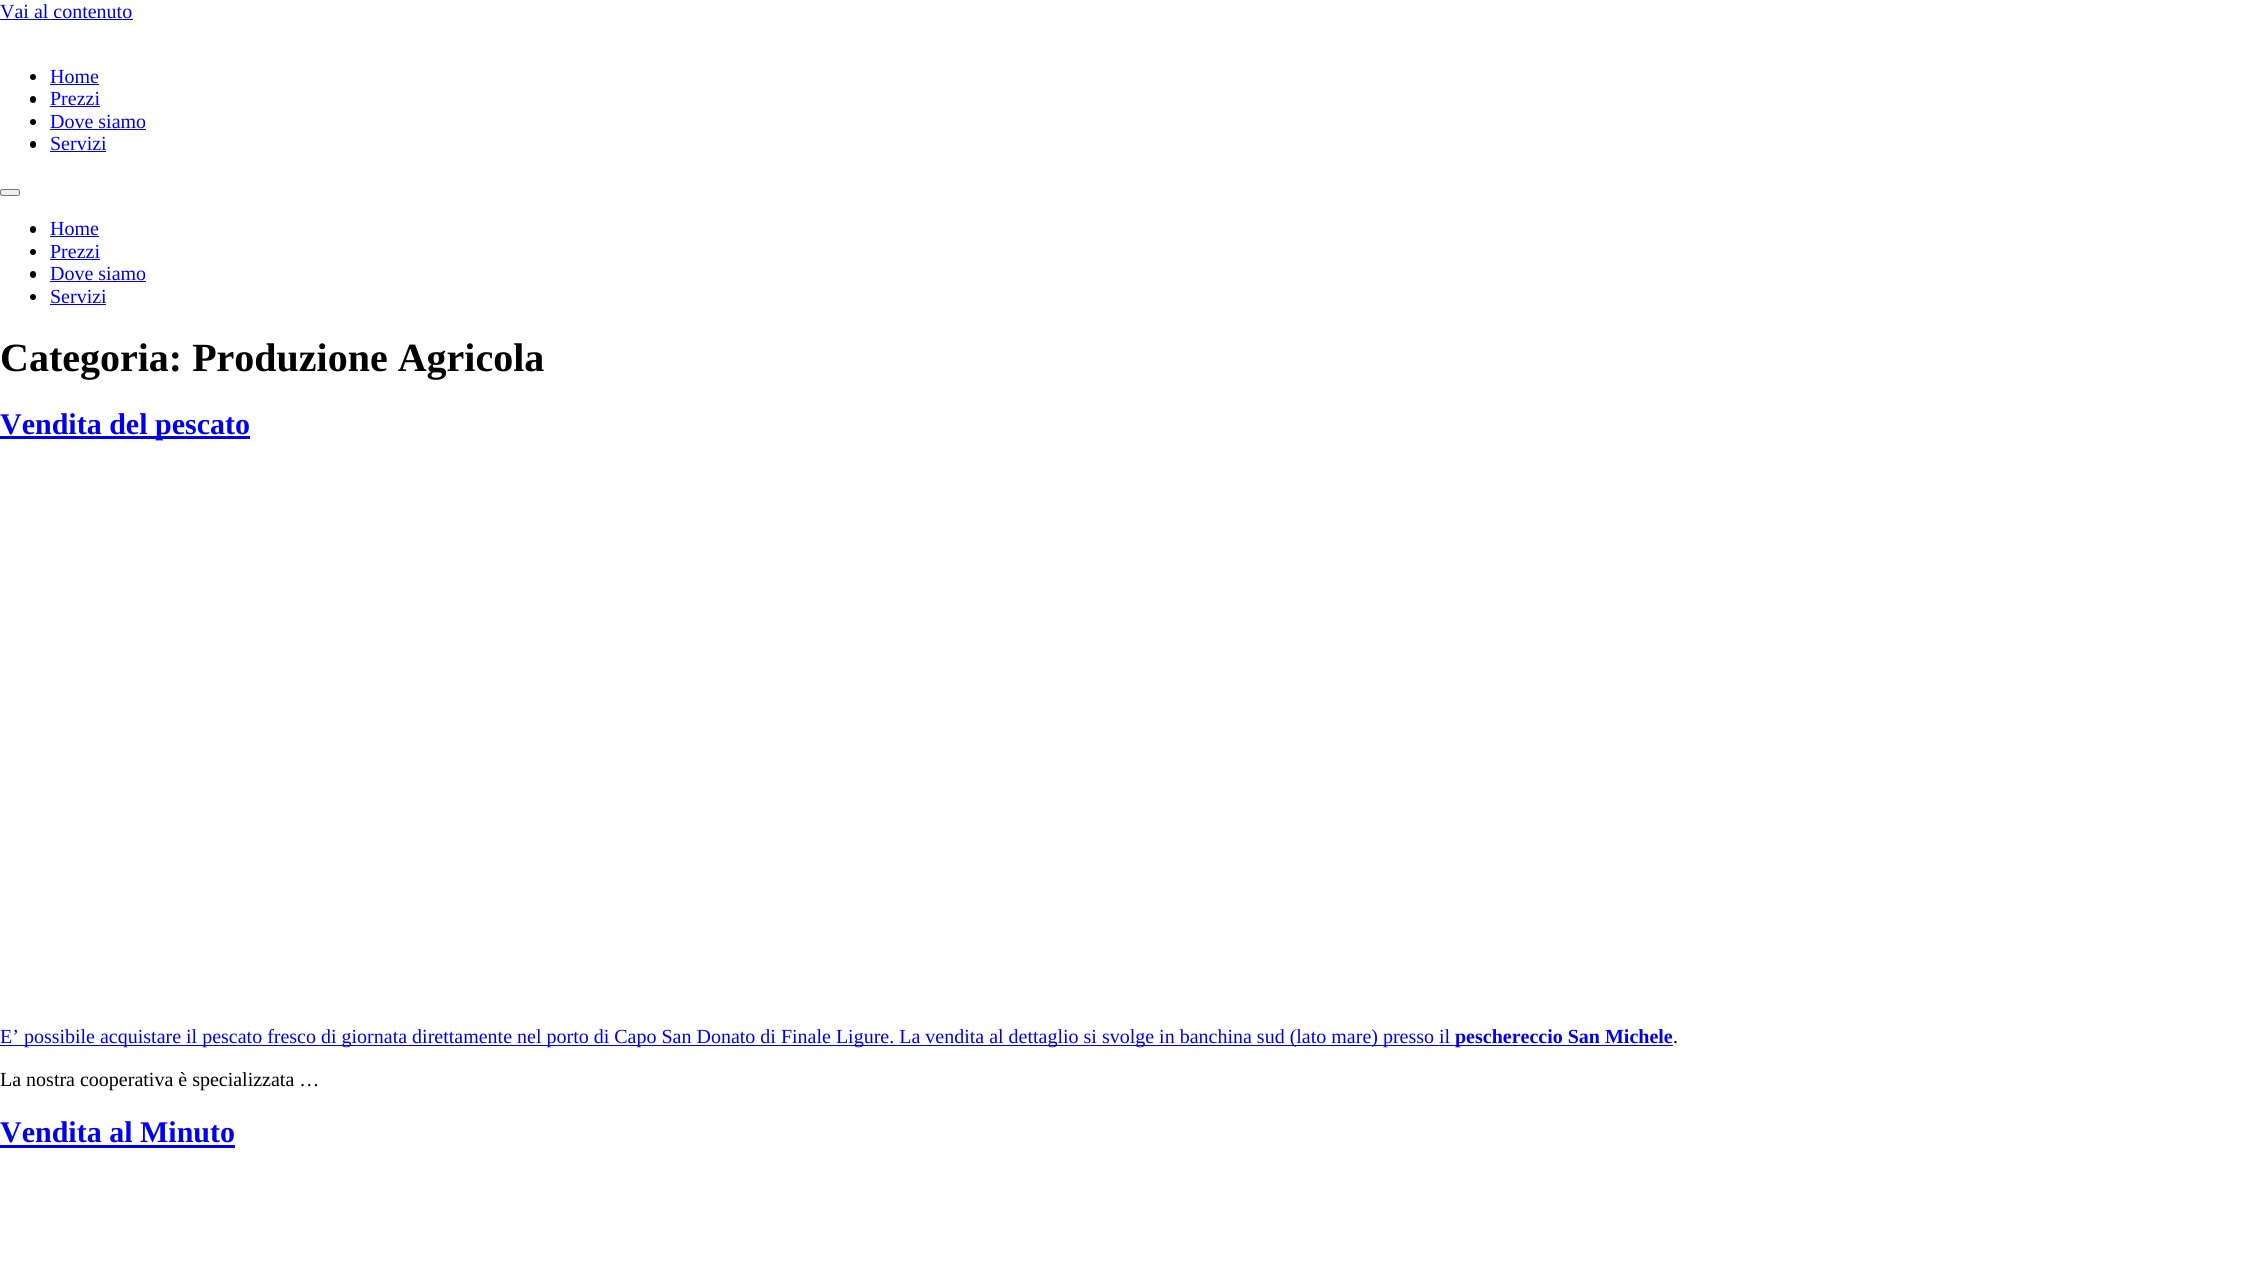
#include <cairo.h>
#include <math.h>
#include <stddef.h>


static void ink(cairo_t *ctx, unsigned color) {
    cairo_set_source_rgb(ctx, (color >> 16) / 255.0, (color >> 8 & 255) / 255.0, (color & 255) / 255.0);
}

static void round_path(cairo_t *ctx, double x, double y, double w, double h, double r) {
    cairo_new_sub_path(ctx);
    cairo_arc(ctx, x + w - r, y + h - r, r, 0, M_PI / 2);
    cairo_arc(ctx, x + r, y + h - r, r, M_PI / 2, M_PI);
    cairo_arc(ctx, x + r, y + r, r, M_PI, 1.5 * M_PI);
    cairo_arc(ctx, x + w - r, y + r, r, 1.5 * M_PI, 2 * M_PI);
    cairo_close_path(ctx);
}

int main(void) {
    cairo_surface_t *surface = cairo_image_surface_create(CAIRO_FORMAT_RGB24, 2257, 1279);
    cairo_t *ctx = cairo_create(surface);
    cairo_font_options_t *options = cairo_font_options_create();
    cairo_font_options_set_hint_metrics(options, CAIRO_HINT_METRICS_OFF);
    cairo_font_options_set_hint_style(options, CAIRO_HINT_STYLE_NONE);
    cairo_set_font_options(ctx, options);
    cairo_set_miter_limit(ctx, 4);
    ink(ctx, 0xFFFFFF);
    cairo_paint(ctx);
    cairo_select_font_face(ctx, "Liberation Serif", CAIRO_FONT_SLANT_NORMAL, CAIRO_FONT_WEIGHT_NORMAL);
    cairo_set_font_size(ctx, 20);
    ink(ctx, 0x0000EE);
    cairo_move_to(ctx, 0, 18);
    cairo_show_text(ctx, "Vai al contenuto");
    cairo_rectangle(ctx, 0, 19, 133, 1);
    cairo_fill(ctx);
    ink(ctx, 0x000000);
    cairo_arc(ctx, 33, 77, 3, 0, 2 * M_PI);
    cairo_fill(ctx);
    ink(ctx, 0x0000EE);
    cairo_move_to(ctx, 50, 83);
    cairo_show_text(ctx, "Home");
    cairo_rectangle(ctx, 50, 84, 49, 1);
    cairo_fill(ctx);
    ink(ctx, 0x000000);
    round_path(ctx, 30, 96, 6, 7, 3);
    cairo_fill(ctx);
    ink(ctx, 0x0000EE);
    cairo_move_to(ctx, 50, 105);
    cairo_show_text(ctx, "Prezzi");
    cairo_rectangle(ctx, 50, 106, 50, 1);
    cairo_fill(ctx);
    ink(ctx, 0x000000);
    cairo_arc(ctx, 33, 122, 3, 0, 2 * M_PI);
    cairo_fill(ctx);
    ink(ctx, 0x0000EE);
    cairo_move_to(ctx, 50, 128);
    cairo_show_text(ctx, "Dove siamo");
    cairo_rectangle(ctx, 50, 129, 96, 1);
    cairo_fill(ctx);
    ink(ctx, 0x000000);
    round_path(ctx, 30, 141, 6, 7, 3);
    cairo_fill(ctx);
    ink(ctx, 0x0000EE);
    cairo_move_to(ctx, 50, 150);
    cairo_show_text(ctx, "Servizi");
    cairo_rectangle(ctx, 50, 151, 56, 1);
    cairo_fill(ctx);
    ink(ctx, 0xEFEFEF);
    round_path(ctx, 0.5, 189.5, 19, 6, 2);
    cairo_fill_preserve(ctx);
    ink(ctx, 0x767676);
    cairo_set_line_width(ctx, 1);
    cairo_stroke(ctx);
    ink(ctx, 0x000000);
    round_path(ctx, 30, 226, 6, 7, 3);
    cairo_fill(ctx);
    ink(ctx, 0x0000EE);
    cairo_move_to(ctx, 50, 235);
    cairo_show_text(ctx, "Home");
    cairo_rectangle(ctx, 50, 236, 49, 1);
    cairo_fill(ctx);
    ink(ctx, 0x000000);
    cairo_arc(ctx, 33, 252, 3, 0, 2 * M_PI);
    cairo_fill(ctx);
    ink(ctx, 0x0000EE);
    cairo_move_to(ctx, 50, 258);
    cairo_show_text(ctx, "Prezzi");
    cairo_rectangle(ctx, 50, 259, 50, 1);
    cairo_fill(ctx);
    ink(ctx, 0x000000);
    round_path(ctx, 30, 271, 6, 7, 3);
    cairo_fill(ctx);
    ink(ctx, 0x0000EE);
    cairo_move_to(ctx, 50, 280);
    cairo_show_text(ctx, "Dove siamo");
    cairo_rectangle(ctx, 50, 281, 96, 1);
    cairo_fill(ctx);
    ink(ctx, 0x000000);
    cairo_arc(ctx, 33, 297, 3, 0, 2 * M_PI);
    cairo_fill(ctx);
    ink(ctx, 0x0000EE);
    cairo_move_to(ctx, 50, 303);
    cairo_show_text(ctx, "Servizi");
    cairo_rectangle(ctx, 50, 304, 56, 1);
    cairo_fill(ctx);
    cairo_select_font_face(ctx, "Liberation Serif", CAIRO_FONT_SLANT_NORMAL, CAIRO_FONT_WEIGHT_BOLD);
    cairo_set_font_size(ctx, 40);
    ink(ctx, 0x000000);
    cairo_move_to(ctx, 0, 371);
    cairo_show_text(ctx, "Categoria: Produzione Agricola");
    ink(ctx, 0x0000EE);
    cairo_rectangle(ctx, 0, 436, 250, 3);
    cairo_fill(ctx);
    cairo_set_font_size(ctx, 30);
    cairo_move_to(ctx, 0, 434);
    cairo_show_text(ctx, "Vendita del pescato");
    cairo_rectangle(ctx, 0, 1045, 1673, 1);
    cairo_fill(ctx);
    cairo_select_font_face(ctx, "Liberation Serif", CAIRO_FONT_SLANT_NORMAL, CAIRO_FONT_WEIGHT_NORMAL);
    cairo_set_font_size(ctx, 20);
    cairo_move_to(ctx, 0, 1043);
    cairo_show_text(ctx, "E’ possibile acquistare il pescato fresco di giornata direttamente nel porto di Capo San Donato di Finale Ligure. La vendita al dettaglio si svolge in banchina sud (lato mare) presso il");
    cairo_select_font_face(ctx, "Liberation Serif", CAIRO_FONT_SLANT_NORMAL, CAIRO_FONT_WEIGHT_BOLD);
    cairo_move_to(ctx, 1455, 1043);
    cairo_show_text(ctx, "peschereccio San Michele");
    cairo_select_font_face(ctx, "Liberation Serif", CAIRO_FONT_SLANT_NORMAL, CAIRO_FONT_WEIGHT_NORMAL);
    ink(ctx, 0x000000);
    cairo_move_to(ctx, 1673, 1043);
    cairo_show_text(ctx, ".");
    cairo_move_to(ctx, 0, 1086);
    cairo_show_text(ctx, "La nostra cooperativa è specializzata …");
    cairo_select_font_face(ctx, "Liberation Serif", CAIRO_FONT_SLANT_NORMAL, CAIRO_FONT_WEIGHT_BOLD);
    cairo_set_font_size(ctx, 30);
    ink(ctx, 0x0000EE);
    cairo_move_to(ctx, 0, 1142);
    cairo_show_text(ctx, "Vendita al Minuto");
    cairo_rectangle(ctx, 0, 1145, 235, 3);
    cairo_fill(ctx);
    cairo_surface_write_to_png(surface, "image.png");
    cairo_font_options_destroy(options);
    cairo_destroy(ctx);
    cairo_surface_destroy(surface);
    return 0;
}
